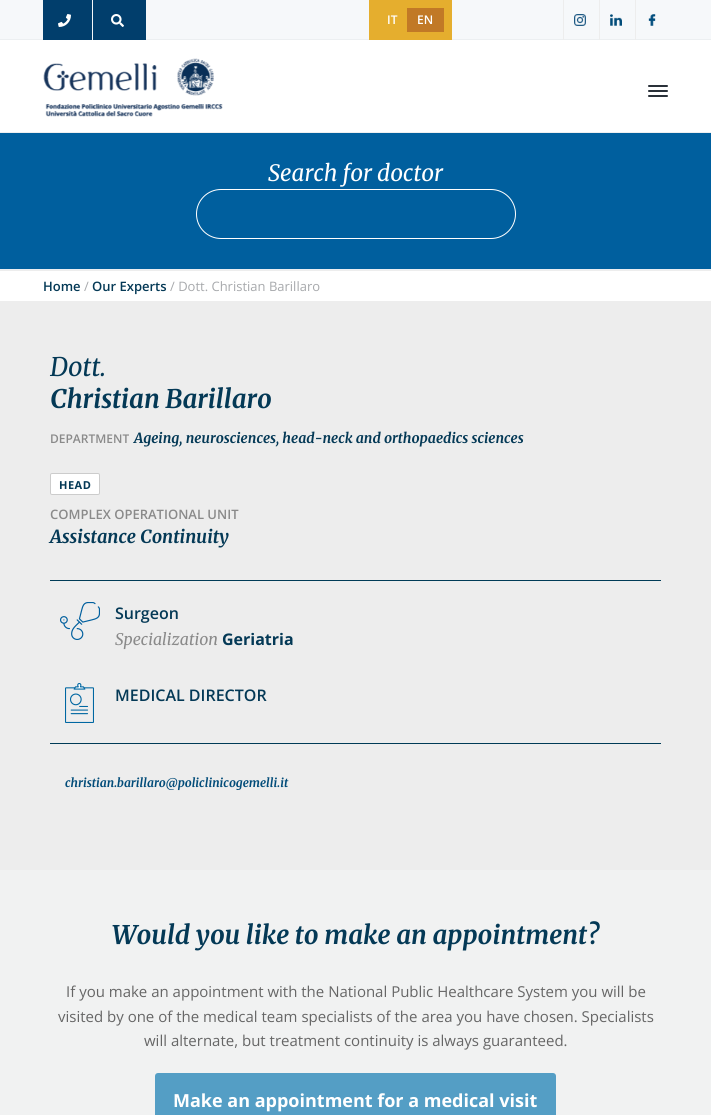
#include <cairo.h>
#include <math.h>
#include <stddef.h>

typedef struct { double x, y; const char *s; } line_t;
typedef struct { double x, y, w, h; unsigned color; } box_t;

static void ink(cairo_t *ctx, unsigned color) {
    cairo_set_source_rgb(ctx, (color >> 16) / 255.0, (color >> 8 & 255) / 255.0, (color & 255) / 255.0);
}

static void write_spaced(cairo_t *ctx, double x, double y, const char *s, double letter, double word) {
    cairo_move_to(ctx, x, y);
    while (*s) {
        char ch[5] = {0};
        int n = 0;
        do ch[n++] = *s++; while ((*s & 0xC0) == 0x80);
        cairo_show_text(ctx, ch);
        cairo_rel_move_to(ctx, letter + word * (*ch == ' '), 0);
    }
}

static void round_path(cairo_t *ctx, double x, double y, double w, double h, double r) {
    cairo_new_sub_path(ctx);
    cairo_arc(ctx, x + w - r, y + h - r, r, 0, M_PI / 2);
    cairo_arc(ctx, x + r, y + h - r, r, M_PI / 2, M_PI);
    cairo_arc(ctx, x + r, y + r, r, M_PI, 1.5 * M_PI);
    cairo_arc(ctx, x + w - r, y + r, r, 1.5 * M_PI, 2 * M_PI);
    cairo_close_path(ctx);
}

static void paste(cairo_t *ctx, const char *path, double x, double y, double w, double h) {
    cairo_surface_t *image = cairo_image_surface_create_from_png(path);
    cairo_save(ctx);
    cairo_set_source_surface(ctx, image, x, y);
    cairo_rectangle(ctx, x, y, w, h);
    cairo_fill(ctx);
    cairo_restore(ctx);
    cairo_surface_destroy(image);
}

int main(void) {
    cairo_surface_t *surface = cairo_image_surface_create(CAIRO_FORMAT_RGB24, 711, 1115);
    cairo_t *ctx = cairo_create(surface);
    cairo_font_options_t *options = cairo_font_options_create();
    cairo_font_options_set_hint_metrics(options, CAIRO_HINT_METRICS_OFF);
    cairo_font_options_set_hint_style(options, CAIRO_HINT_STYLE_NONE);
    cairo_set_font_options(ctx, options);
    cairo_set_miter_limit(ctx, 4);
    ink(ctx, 0xFFFFFF);
    cairo_paint(ctx);
    {
        static const box_t items[] = {
            {0, 132, 711, 1, 0xEEEFF0},
            {0, 0, 711, 39, 0xF6F8FA},
            {0, 39, 711, 1, 0xECEFF1},
            {43, 0, 49, 40, 0x013E6C},
        };
        for (size_t i = 0; i < sizeof items / sizeof *items; i++) {
            ink(ctx, items[i].color);
            cairo_rectangle(ctx, items[i].x, items[i].y, items[i].w, items[i].h);
            cairo_fill(ctx);
        }
    }
    paste(ctx, "media/1.png", 58, 14, 13, 13);
    cairo_rectangle(ctx, 93, 0, 53, 40);
    cairo_fill(ctx);
    paste(ctx, "media/2.png", 111, 14, 13, 13);
    ink(ctx, 0xE5AE2E);
    cairo_rectangle(ctx, 369, 0, 83, 40);
    cairo_fill(ctx);
    cairo_select_font_face(ctx, "Open Sans SemiBold", CAIRO_FONT_SLANT_NORMAL, CAIRO_FONT_WEIGHT_NORMAL);
    cairo_set_font_size(ctx, 12);
    ink(ctx, 0xFFFFFF);
    cairo_move_to(ctx, 387, 24);
    cairo_show_text(ctx, "IT");
    ink(ctx, 0xC17926);
    cairo_rectangle(ctx, 407, 8, 37, 24);
    cairo_fill(ctx);
    ink(ctx, 0xFFFFFF);
    cairo_move_to(ctx, 417, 24);
    cairo_show_text(ctx, "EN");
    ink(ctx, 0xEDEDED);
    cairo_rectangle(ctx, 563, 0, 1, 40);
    cairo_fill(ctx);
    paste(ctx, "media/3.png", 574, 14, 12, 12);
    cairo_rectangle(ctx, 599, 0, 1, 40);
    cairo_fill(ctx);
    paste(ctx, "media/4.png", 610, 14, 12, 12);
    cairo_rectangle(ctx, 635, 0, 1, 40);
    cairo_fill(ctx);
    paste(ctx, "media/5.png", 648, 14, 8, 12);
    paste(ctx, "media/6.png", 43, 58, 180, 59);
    ink(ctx, 0x2A3139);
    round_path(ctx, 648, 90, 20, 2, 1);
    cairo_fill(ctx);
    round_path(ctx, 648, 85, 20, 2, 1);
    cairo_fill(ctx);
    round_path(ctx, 648, 95, 20, 2, 1);
    cairo_fill(ctx);
    ink(ctx, 0x005F9E);
    cairo_rectangle(ctx, 0, 133, 711, 136);
    cairo_fill(ctx);
    ink(ctx, 0xECEEF1);
    cairo_rectangle(ctx, 0, 269, 711, 1);
    cairo_fill(ctx);
    cairo_select_font_face(ctx, "Merriweather", CAIRO_FONT_SLANT_ITALIC, CAIRO_FONT_WEIGHT_NORMAL);
    cairo_set_font_size(ctx, 22.5);
    ink(ctx, 0xFFFFFF);
    cairo_move_to(ctx, 268, 181);
    cairo_show_text(ctx, "Search for doctor");
    round_path(ctx, 196.5, 189.5, 319, 49, 24.5);
    cairo_set_line_width(ctx, 1);
    cairo_stroke(ctx);
    ink(ctx, 0xEDEDED);
    cairo_rectangle(ctx, 0, 270, 711, 1);
    cairo_fill(ctx);
    cairo_rectangle(ctx, 0, 301, 711, 569);
    cairo_fill(ctx);
    cairo_select_font_face(ctx, "Open Sans SemiBold", CAIRO_FONT_SLANT_NORMAL, CAIRO_FONT_WEIGHT_NORMAL);
    cairo_set_font_size(ctx, 13);
    ink(ctx, 0x043956);
    cairo_move_to(ctx, 43, 291);
    cairo_show_text(ctx, "Home");
    cairo_select_font_face(ctx, "Open Sans", CAIRO_FONT_SLANT_NORMAL, CAIRO_FONT_WEIGHT_NORMAL);
    ink(ctx, 0xA7A9AC);
    cairo_move_to(ctx, 84, 291);
    cairo_show_text(ctx, "/");
    cairo_select_font_face(ctx, "Open Sans SemiBold", CAIRO_FONT_SLANT_NORMAL, CAIRO_FONT_WEIGHT_NORMAL);
    ink(ctx, 0x043956);
    cairo_move_to(ctx, 92, 291);
    cairo_show_text(ctx, "Our Experts");
    cairo_select_font_face(ctx, "Open Sans", CAIRO_FONT_SLANT_NORMAL, CAIRO_FONT_WEIGHT_NORMAL);
    ink(ctx, 0xA7A9AC);
    cairo_move_to(ctx, 170, 291);
    cairo_show_text(ctx, "/ Dott. Christian Barillaro");
    ink(ctx, 0x003B57);
    cairo_rectangle(ctx, 50, 580, 611, 1);
    cairo_fill(ctx);
    cairo_select_font_face(ctx, "Merriweather", CAIRO_FONT_SLANT_ITALIC, CAIRO_FONT_WEIGHT_NORMAL);
    cairo_set_font_size(ctx, 25.6);
    ink(ctx, 0x043956);
    cairo_move_to(ctx, 50, 376);
    cairo_show_text(ctx, "Dott.");
    cairo_select_font_face(ctx, "Merriweather", CAIRO_FONT_SLANT_ITALIC, CAIRO_FONT_WEIGHT_BOLD);
    cairo_move_to(ctx, 50, 408);
    cairo_show_text(ctx, "Christian Barillaro");
    cairo_select_font_face(ctx, "Open Sans SemiBold", CAIRO_FONT_SLANT_NORMAL, CAIRO_FONT_WEIGHT_NORMAL);
    cairo_set_font_size(ctx, 12);
    ink(ctx, 0x8A8A8A);
    cairo_move_to(ctx, 50, 443);
    cairo_show_text(ctx, "DEPARTMENT");
    cairo_select_font_face(ctx, "Merriweather", CAIRO_FONT_SLANT_ITALIC, CAIRO_FONT_WEIGHT_BOLD);
    cairo_set_font_size(ctx, 14);
    ink(ctx, 0x043956);
    cairo_move_to(ctx, 134, 443);
    cairo_show_text(ctx, "Ageing, neurosciences, head-neck and orthopaedics sciences");
    ink(ctx, 0xFFFFFF);
    round_path(ctx, 50.5, 473.5, 49, 21, 1.5);
    cairo_fill_preserve(ctx);
    ink(ctx, 0xCCCCCC);
    cairo_stroke(ctx);
    cairo_select_font_face(ctx, "Open Sans", CAIRO_FONT_SLANT_NORMAL, CAIRO_FONT_WEIGHT_BOLD);
    cairo_set_font_size(ctx, 11);
    ink(ctx, 0x043956);
    write_spaced(ctx, 59, 489, "HEAD", 0.5, 0);
    cairo_select_font_face(ctx, "Open Sans SemiBold", CAIRO_FONT_SLANT_NORMAL, CAIRO_FONT_WEIGHT_NORMAL);
    cairo_set_font_size(ctx, 13);
    ink(ctx, 0x8A8A8A);
    cairo_move_to(ctx, 50, 519);
    cairo_show_text(ctx, "COMPLEX OPERATIONAL UNIT");
    cairo_select_font_face(ctx, "Merriweather", CAIRO_FONT_SLANT_ITALIC, CAIRO_FONT_WEIGHT_BOLD);
    cairo_set_font_size(ctx, 18);
    ink(ctx, 0x043956);
    cairo_move_to(ctx, 50, 543);
    cairo_show_text(ctx, "Assistance Continuity");
    ink(ctx, 0x003B57);
    cairo_rectangle(ctx, 50, 743, 611, 1);
    cairo_fill(ctx);
    paste(ctx, "media/7.png", 60, 602, 40, 38);
    cairo_select_font_face(ctx, "Open Sans SemiBold", CAIRO_FONT_SLANT_NORMAL, CAIRO_FONT_WEIGHT_NORMAL);
    cairo_set_font_size(ctx, 16);
    ink(ctx, 0x043956);
    cairo_move_to(ctx, 115, 619);
    cairo_show_text(ctx, "Surgeon");
    cairo_select_font_face(ctx, "Merriweather", CAIRO_FONT_SLANT_ITALIC, CAIRO_FONT_WEIGHT_NORMAL);
    ink(ctx, 0x8A8A8A);
    cairo_move_to(ctx, 115, 645);
    cairo_show_text(ctx, "Specialization");
    cairo_select_font_face(ctx, "Open Sans", CAIRO_FONT_SLANT_NORMAL, CAIRO_FONT_WEIGHT_BOLD);
    ink(ctx, 0x043956);
    cairo_move_to(ctx, 222, 645);
    cairo_show_text(ctx, "Geriatria");
    paste(ctx, "media/8.png", 65, 683, 29, 40);
    cairo_select_font_face(ctx, "Open Sans SemiBold", CAIRO_FONT_SLANT_NORMAL, CAIRO_FONT_WEIGHT_NORMAL);
    cairo_move_to(ctx, 115, 701);
    cairo_show_text(ctx, "MEDICAL DIRECTOR");
    cairo_select_font_face(ctx, "Merriweather", CAIRO_FONT_SLANT_ITALIC, CAIRO_FONT_WEIGHT_BOLD);
    cairo_set_font_size(ctx, 12);
    ink(ctx, 0x024C79);
    cairo_move_to(ctx, 65, 787);
    cairo_show_text(ctx, "christian.barillaro@policlinicogemelli.it");
    ink(ctx, 0xF1F2F2);
    cairo_rectangle(ctx, 0, 870, 711, 245);
    cairo_fill(ctx);
    cairo_set_font_size(ctx, 25.6);
    ink(ctx, 0x043956);
    cairo_move_to(ctx, 112, 944);
    cairo_show_text(ctx, "Would you like to make an appointment?");
    cairo_select_font_face(ctx, "Open Sans", CAIRO_FONT_SLANT_NORMAL, CAIRO_FONT_WEIGHT_NORMAL);
    cairo_set_font_size(ctx, 15);
    ink(ctx, 0x666666);
    {
        static const line_t items[] = {
            {66, 997, "If you make an appointment with the National Public Healthcare System you will be"},
            {58, 1022, "visited by one of the medical team specialists of the area you have chosen. Specialists"},
            {144, 1046, "will alternate, but treatment continuity is always guaranteed."},
        };
        for (size_t i = 0; i < sizeof items / sizeof *items; i++) {
            cairo_move_to(ctx, items[i].x, items[i].y);
            cairo_show_text(ctx, items[i].s);
        }
    }
    ink(ctx, 0x549EC5);
    round_path(ctx, 155, 1073, 401, 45, 3);
    cairo_fill(ctx);
    cairo_select_font_face(ctx, "Open Sans", CAIRO_FONT_SLANT_NORMAL, CAIRO_FONT_WEIGHT_BOLD);
    cairo_set_font_size(ctx, 18);
    ink(ctx, 0xFFFFFF);
    cairo_move_to(ctx, 173, 1107);
    cairo_show_text(ctx, "Make an appointment for a medical visit");
    cairo_surface_write_to_png(surface, "image.png");
    cairo_font_options_destroy(options);
    cairo_destroy(ctx);
    cairo_surface_destroy(surface);
    return 0;
}
